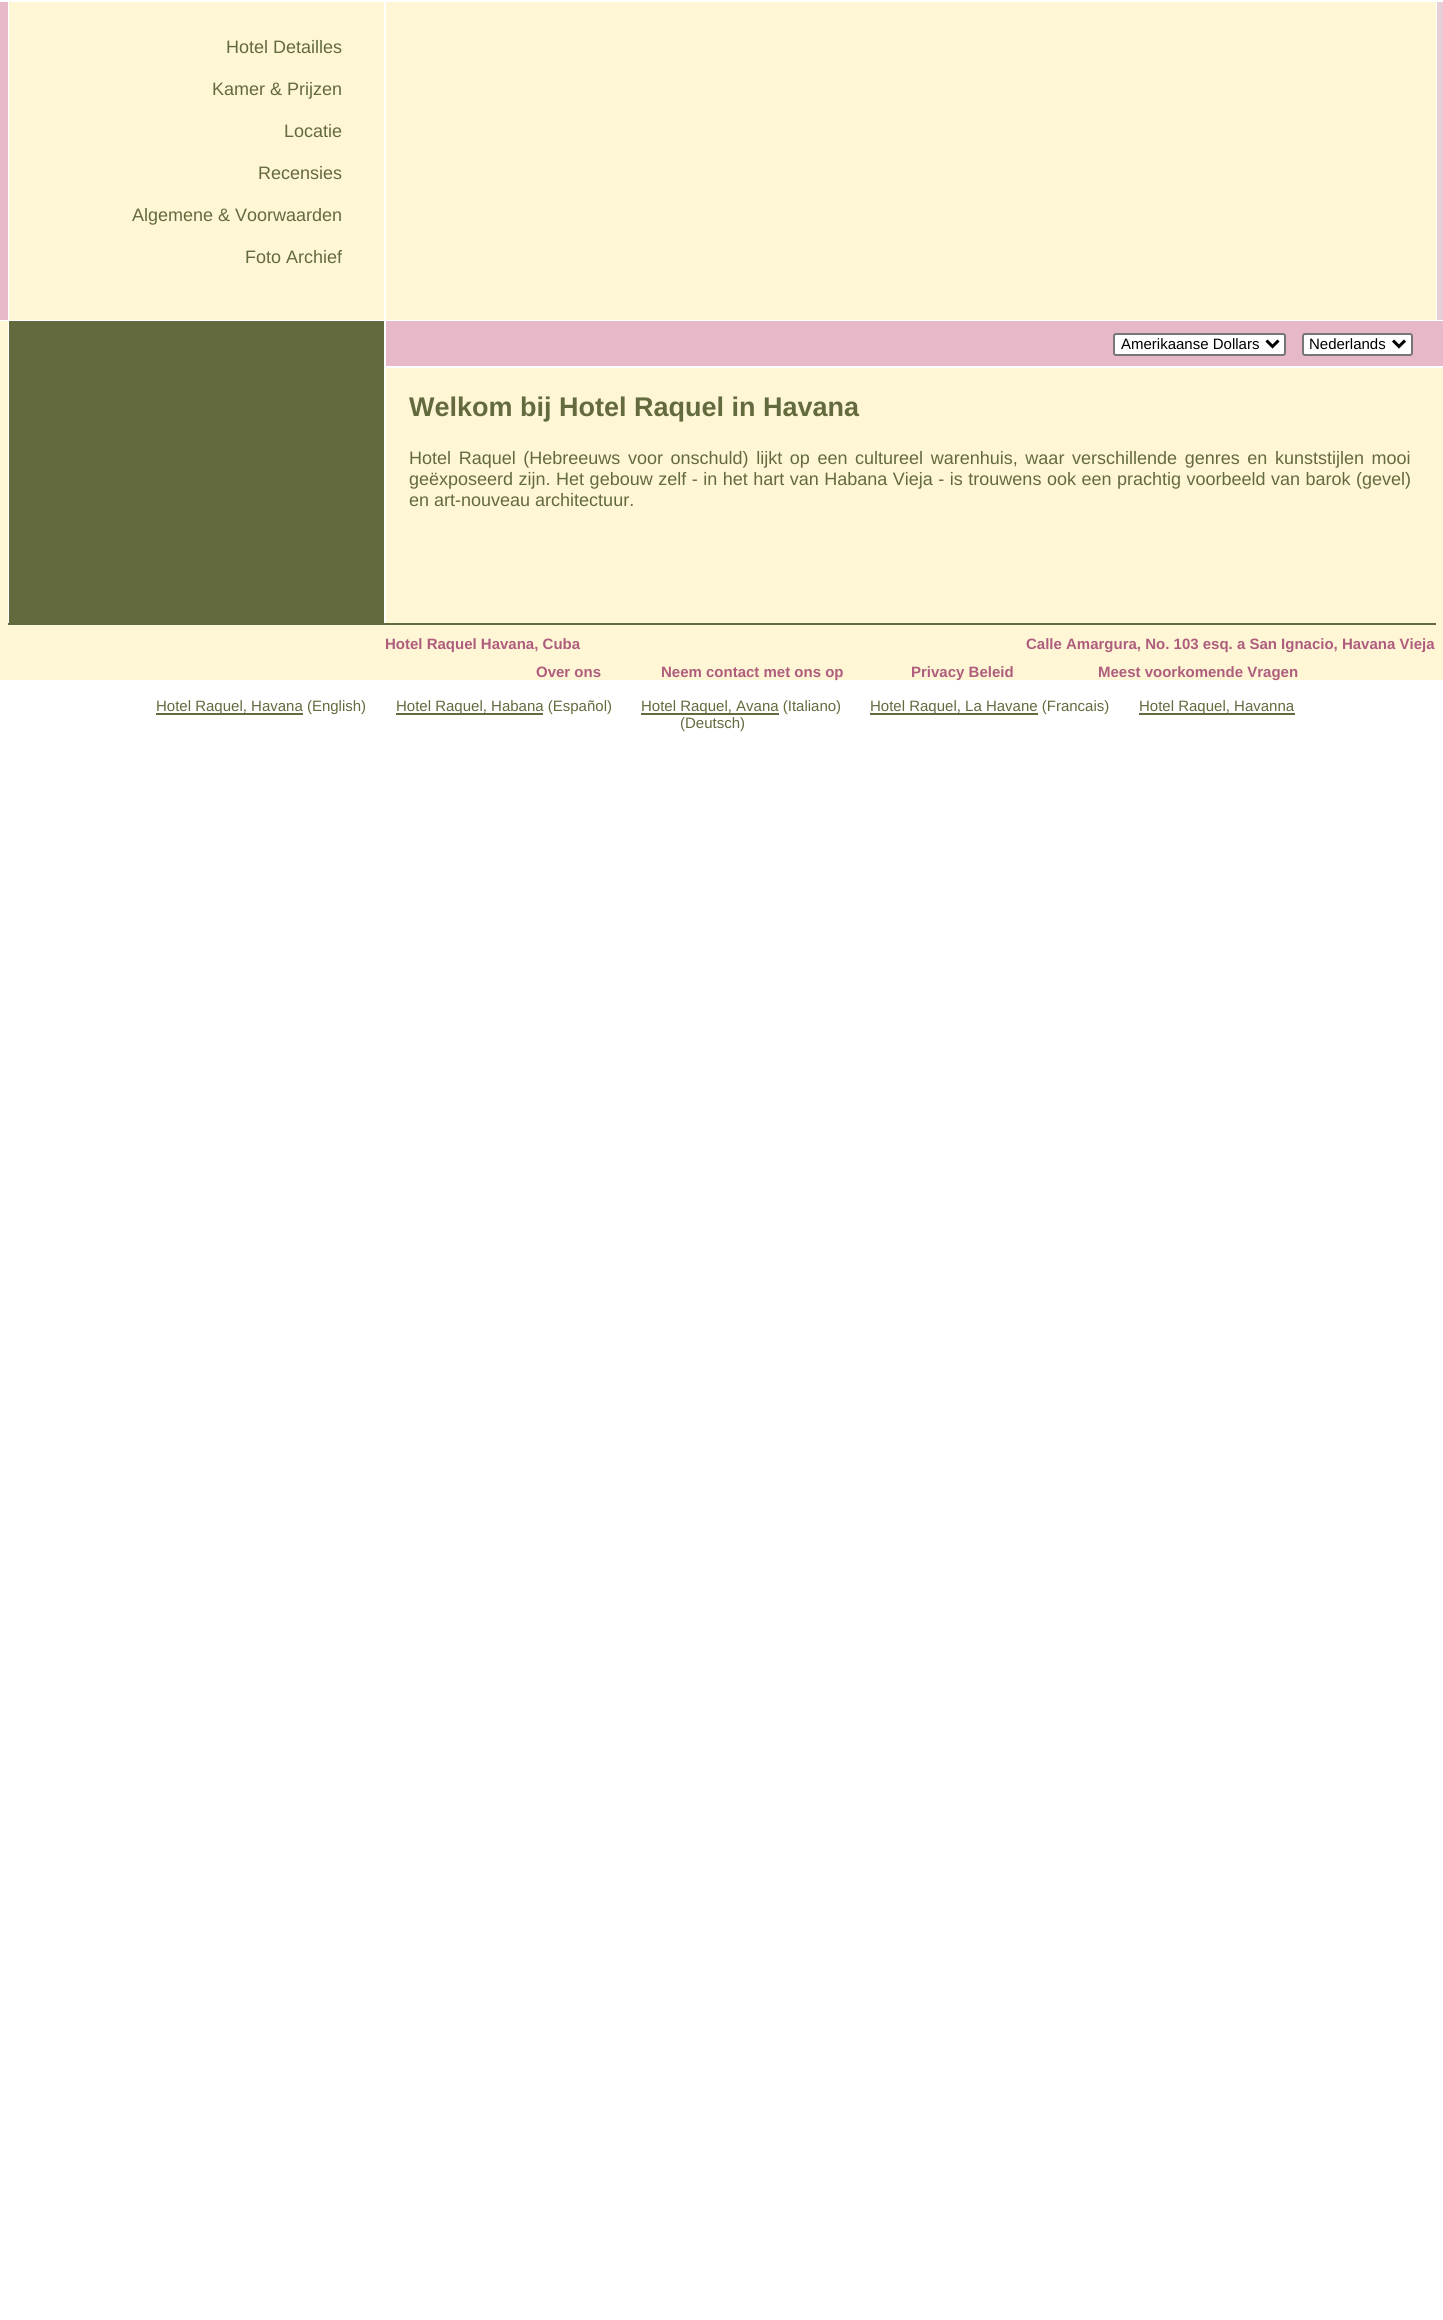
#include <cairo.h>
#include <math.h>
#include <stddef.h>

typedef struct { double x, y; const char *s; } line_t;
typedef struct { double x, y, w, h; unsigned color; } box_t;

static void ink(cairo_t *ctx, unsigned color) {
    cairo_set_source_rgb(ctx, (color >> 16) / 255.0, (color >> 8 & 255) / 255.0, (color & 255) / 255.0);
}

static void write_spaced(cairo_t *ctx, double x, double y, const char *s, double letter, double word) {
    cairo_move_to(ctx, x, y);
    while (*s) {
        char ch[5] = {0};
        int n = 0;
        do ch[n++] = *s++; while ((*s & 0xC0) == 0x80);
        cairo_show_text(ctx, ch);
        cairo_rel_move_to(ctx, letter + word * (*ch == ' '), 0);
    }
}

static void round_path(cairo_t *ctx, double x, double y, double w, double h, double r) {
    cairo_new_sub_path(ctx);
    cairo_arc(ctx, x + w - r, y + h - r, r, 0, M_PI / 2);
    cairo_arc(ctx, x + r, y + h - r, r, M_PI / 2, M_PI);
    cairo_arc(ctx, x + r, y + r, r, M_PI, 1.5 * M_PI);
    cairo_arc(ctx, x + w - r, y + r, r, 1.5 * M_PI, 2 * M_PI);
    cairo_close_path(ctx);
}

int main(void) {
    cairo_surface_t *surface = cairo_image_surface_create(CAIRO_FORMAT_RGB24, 1443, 2320);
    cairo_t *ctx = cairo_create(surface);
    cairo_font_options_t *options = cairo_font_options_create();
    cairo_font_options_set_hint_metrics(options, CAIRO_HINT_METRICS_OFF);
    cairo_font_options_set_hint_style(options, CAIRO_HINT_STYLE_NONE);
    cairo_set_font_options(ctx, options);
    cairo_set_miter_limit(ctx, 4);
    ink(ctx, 0xFFFFFF);
    cairo_paint(ctx);
    {
        static const box_t items[] = {
            {0, 2, 8, 318, 0xE7B8C7},
            {9, 2, 375, 318, 0xFFF6D5},
            {386, 2, 1050, 318, 0xFFF6D5},
            {1437, 2, 6, 318, 0xE7CFD7},
        };
        for (size_t i = 0; i < sizeof items / sizeof *items; i++) {
            ink(ctx, items[i].color);
            cairo_rectangle(ctx, items[i].x, items[i].y, items[i].w, items[i].h);
            cairo_fill(ctx);
        }
    }
    cairo_select_font_face(ctx, "Liberation Sans", CAIRO_FONT_SLANT_NORMAL, CAIRO_FONT_WEIGHT_NORMAL);
    cairo_set_font_size(ctx, 18);
    ink(ctx, 0x636A3E);
    {
        static const line_t items[] = {
            {226, 53, "Hotel Detailles"},
            {212, 95, "Kamer & Prijzen"},
            {284, 137, "Locatie"},
            {258, 179, "Recensies"},
            {132, 221, "Algemene & Voorwaarden"},
            {245, 263, "Foto Archief"},
        };
        for (size_t i = 0; i < sizeof items / sizeof *items; i++) {
            cairo_move_to(ctx, items[i].x, items[i].y);
            cairo_show_text(ctx, items[i].s);
        }
    }
    {
        static const box_t items[] = {
            {0, 321, 8, 359, 0xFFF6D5},
            {9, 321, 375, 302, 0x636A3E},
            {386, 321, 1057, 45, 0xE7B8C7},
        };
        for (size_t i = 0; i < sizeof items / sizeof *items; i++) {
            ink(ctx, items[i].color);
            cairo_rectangle(ctx, items[i].x, items[i].y, items[i].w, items[i].h);
            cairo_fill(ctx);
        }
    }
    ink(ctx, 0xFFFFFF);
    round_path(ctx, 1114, 334, 171, 21, 2);
    cairo_fill_preserve(ctx);
    ink(ctx, 0x767676);
    cairo_stroke(ctx);
    cairo_new_path(ctx);
    cairo_move_to(ctx, 1266.5, 340.5);
    cairo_line_to(ctx, 1272.5, 346.5);
    cairo_line_to(ctx, 1278.5, 340.5);
    ink(ctx, 0x000000);
    cairo_set_line_width(ctx, 3);
    cairo_stroke(ctx);
    cairo_set_font_size(ctx, 15);
    cairo_move_to(ctx, 1121, 349);
    cairo_show_text(ctx, "Amerikaanse Dollars");
    ink(ctx, 0xFFFFFF);
    round_path(ctx, 1303, 334, 109, 21, 2);
    cairo_fill_preserve(ctx);
    ink(ctx, 0x767676);
    cairo_set_line_width(ctx, 2);
    cairo_stroke(ctx);
    cairo_new_path(ctx);
    cairo_move_to(ctx, 1393, 340.5);
    cairo_line_to(ctx, 1399, 346.5);
    cairo_line_to(ctx, 1405, 340.5);
    ink(ctx, 0x000000);
    cairo_set_line_width(ctx, 3);
    cairo_stroke(ctx);
    cairo_move_to(ctx, 1309, 349);
    cairo_show_text(ctx, "Nederlands");
    ink(ctx, 0xFFF6D5);
    cairo_rectangle(ctx, 386, 368, 1057, 255);
    cairo_fill(ctx);
    cairo_select_font_face(ctx, "Liberation Sans", CAIRO_FONT_SLANT_NORMAL, CAIRO_FONT_WEIGHT_BOLD);
    cairo_set_font_size(ctx, 27);
    ink(ctx, 0x636A3E);
    cairo_move_to(ctx, 409, 416);
    cairo_show_text(ctx, "Welkom bij Hotel Raquel in Havana");
    cairo_select_font_face(ctx, "Liberation Sans", CAIRO_FONT_SLANT_NORMAL, CAIRO_FONT_WEIGHT_NORMAL);
    cairo_set_font_size(ctx, 18);
    write_spaced(ctx, 409, 464, "Hotel Raquel (Hebreeuws voor onschuld) lijkt op een cultureel warenhuis, waar verschillende genres en kunststijlen mooi", 0, 2.6);
    write_spaced(ctx, 409, 485, "geëxposeerd zijn. Het gebouw zelf - in het hart van Habana Vieja - is trouwens ook een prachtig voorbeeld van barok (gevel)", 0, 0.5);
    cairo_move_to(ctx, 409, 506);
    cairo_show_text(ctx, "en art-nouveau architectuur.");
    {
        static const box_t items[] = {
            {8, 623, 1, 57, 0xFFF6D5},
            {8, 623, 376, 2, 0x636A3E},
            {384, 623, 2, 57, 0xFFF6D5},
            {384, 623, 1052, 2, 0x636A3E},
            {1436, 623, 7, 57, 0xFFF6D5},
            {9, 625, 375, 55, 0xFFF6D5},
            {386, 625, 1050, 55, 0xFFF6D5},
        };
        for (size_t i = 0; i < sizeof items / sizeof *items; i++) {
            ink(ctx, items[i].color);
            cairo_rectangle(ctx, items[i].x, items[i].y, items[i].w, items[i].h);
            cairo_fill(ctx);
        }
    }
    cairo_select_font_face(ctx, "Liberation Sans", CAIRO_FONT_SLANT_NORMAL, CAIRO_FONT_WEIGHT_BOLD);
    cairo_set_font_size(ctx, 15);
    ink(ctx, 0xAE5D7D);
    {
        static const line_t items[] = {
            {385, 649, "Hotel Raquel Havana, Cuba"},
            {1026, 649, "Calle Amargura, No. 103 esq. a San Ignacio, Havana Vieja"},
            {536, 677, "Over ons"},
            {661, 677, "Neem contact met ons op"},
            {911, 677, "Privacy Beleid"},
            {1098, 677, "Meest voorkomende Vragen"},
        };
        for (size_t i = 0; i < sizeof items / sizeof *items; i++) {
            cairo_move_to(ctx, items[i].x, items[i].y);
            cairo_show_text(ctx, items[i].s);
        }
    }
    ink(ctx, 0x636A3E);
    cairo_rectangle(ctx, 156, 713, 147, 2);
    cairo_fill(ctx);
    cairo_select_font_face(ctx, "Liberation Sans", CAIRO_FONT_SLANT_NORMAL, CAIRO_FONT_WEIGHT_NORMAL);
    cairo_move_to(ctx, 156, 711);
    cairo_show_text(ctx, "Hotel Raquel, Havana (English)");
    cairo_rectangle(ctx, 396, 713, 147, 2);
    cairo_fill(ctx);
    cairo_move_to(ctx, 396, 711);
    cairo_show_text(ctx, "Hotel Raquel, Habana (Español)");
    cairo_rectangle(ctx, 641, 713, 138, 2);
    cairo_fill(ctx);
    cairo_move_to(ctx, 641, 711);
    cairo_show_text(ctx, "Hotel Raquel, Avana (Italiano)");
    cairo_rectangle(ctx, 870, 713, 168, 2);
    cairo_fill(ctx);
    cairo_move_to(ctx, 870, 711);
    cairo_show_text(ctx, "Hotel Raquel, La Havane (Francais)");
    cairo_rectangle(ctx, 1139, 713, 156, 2);
    cairo_fill(ctx);
    cairo_move_to(ctx, 1139, 711);
    cairo_show_text(ctx, "Hotel Raquel, Havanna");
    cairo_move_to(ctx, 680, 728);
    cairo_show_text(ctx, "(Deutsch)");
    cairo_surface_write_to_png(surface, "image.png");
    cairo_font_options_destroy(options);
    cairo_destroy(ctx);
    cairo_surface_destroy(surface);
    return 0;
}
